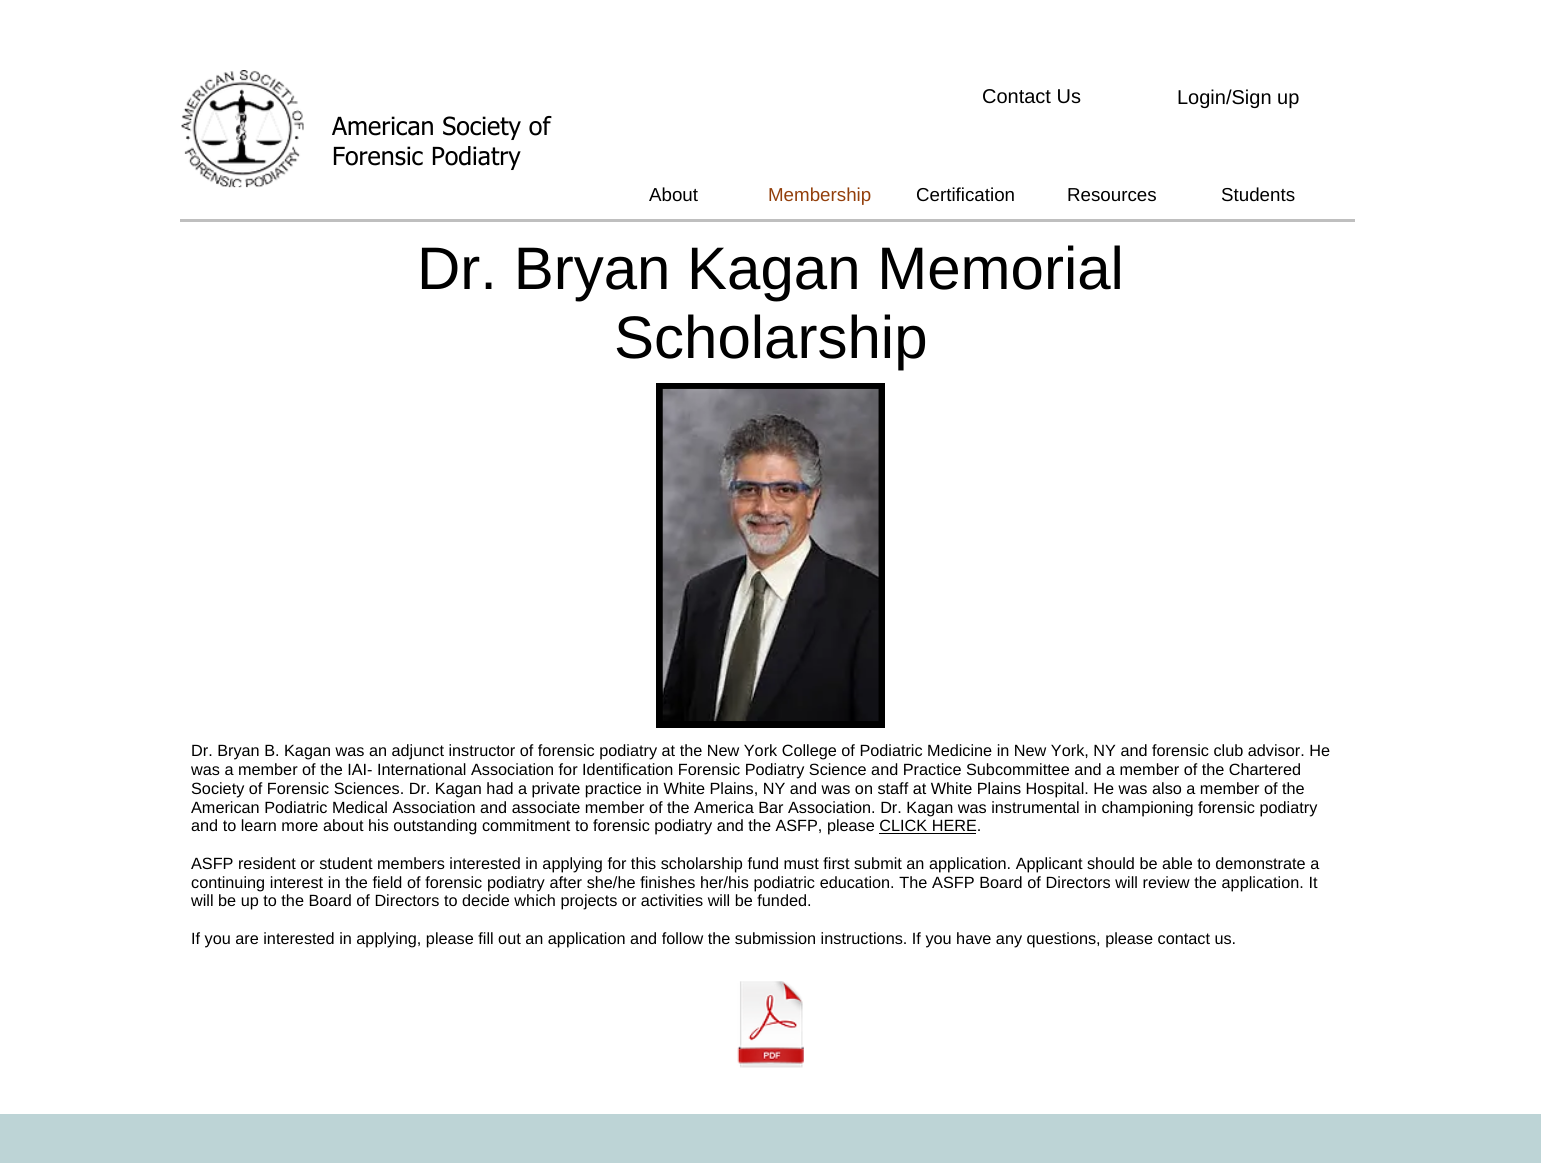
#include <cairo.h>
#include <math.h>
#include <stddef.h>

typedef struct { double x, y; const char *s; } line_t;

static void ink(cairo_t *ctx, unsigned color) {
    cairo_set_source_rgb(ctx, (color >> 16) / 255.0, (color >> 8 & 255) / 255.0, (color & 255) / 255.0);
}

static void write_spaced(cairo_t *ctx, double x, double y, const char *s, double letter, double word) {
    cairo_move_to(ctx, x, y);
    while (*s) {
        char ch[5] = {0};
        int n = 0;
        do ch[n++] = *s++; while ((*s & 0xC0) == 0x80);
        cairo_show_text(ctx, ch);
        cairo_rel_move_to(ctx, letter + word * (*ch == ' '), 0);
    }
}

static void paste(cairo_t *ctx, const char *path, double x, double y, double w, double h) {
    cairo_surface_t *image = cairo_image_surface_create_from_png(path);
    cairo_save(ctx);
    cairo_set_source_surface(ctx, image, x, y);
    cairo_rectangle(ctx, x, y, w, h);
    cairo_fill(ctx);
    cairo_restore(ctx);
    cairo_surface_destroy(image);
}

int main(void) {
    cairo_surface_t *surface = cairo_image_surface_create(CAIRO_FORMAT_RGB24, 1541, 1163);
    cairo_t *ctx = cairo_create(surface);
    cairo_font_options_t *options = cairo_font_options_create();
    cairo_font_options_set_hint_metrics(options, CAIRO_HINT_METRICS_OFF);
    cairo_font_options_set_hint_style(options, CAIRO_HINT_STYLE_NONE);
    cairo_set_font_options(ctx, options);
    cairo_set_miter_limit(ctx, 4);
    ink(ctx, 0xFFFFFF);
    cairo_paint(ctx);
    paste(ctx, "media/1.png", 181, 70, 123, 118);
    cairo_select_font_face(ctx, "Liberation Sans", CAIRO_FONT_SLANT_NORMAL, CAIRO_FONT_WEIGHT_NORMAL);
    cairo_set_font_size(ctx, 20);
    ink(ctx, 0x000000);
    cairo_move_to(ctx, 982, 103);
    cairo_show_text(ctx, "Contact Us");
    cairo_move_to(ctx, 1177, 104);
    cairo_show_text(ctx, "Login/Sign up");
    cairo_select_font_face(ctx, "tahoma", CAIRO_FONT_SLANT_NORMAL, CAIRO_FONT_WEIGHT_NORMAL);
    cairo_set_font_size(ctx, 25);
    cairo_move_to(ctx, 332, 135);
    cairo_show_text(ctx, "American Society of");
    cairo_move_to(ctx, 332, 165);
    cairo_show_text(ctx, "Forensic Podiatry");
    cairo_select_font_face(ctx, "Liberation Sans", CAIRO_FONT_SLANT_NORMAL, CAIRO_FONT_WEIGHT_NORMAL);
    cairo_set_font_size(ctx, 18.75);
    cairo_move_to(ctx, 649, 201);
    cairo_show_text(ctx, "About");
    ink(ctx, 0x933F0B);
    cairo_move_to(ctx, 768, 201);
    cairo_show_text(ctx, "Membership");
    ink(ctx, 0x000000);
    {
        static const line_t items[] = {
            {916, 201, "Certification"},
            {1067, 201, "Resources"},
            {1221, 201, "Students"},
        };
        for (size_t i = 0; i < sizeof items / sizeof *items; i++) {
            cairo_move_to(ctx, items[i].x, items[i].y);
            cairo_show_text(ctx, items[i].s);
        }
    }
    ink(ctx, 0xBFBFBF);
    cairo_rectangle(ctx, 180, 219, 1175, 3);
    cairo_fill(ctx);
    cairo_set_font_size(ctx, 60);
    ink(ctx, 0x000000);
    cairo_move_to(ctx, 417, 289);
    cairo_show_text(ctx, "Dr. Bryan Kagan Memorial");
    cairo_move_to(ctx, 614, 358);
    cairo_show_text(ctx, "Scholarship");
    cairo_rectangle(ctx, 656, 383, 229, 345);
    cairo_fill(ctx);
    paste(ctx, "media/2.png", 662, 388, 217, 334);
    cairo_set_font_size(ctx, 16.25);
    {
        static const line_t items[] = {
            {191, 756, "Dr. Bryan B. Kagan was an adjunct instructor of forensic podiatry at the New York College of Podiatric Medicine in New York, NY and forensic club advisor. He"},
            {191, 775, "was a member of the IAI- International Association for Identification Forensic Podiatry Science and Practice Subcommittee and a member of the Chartered"},
            {191, 794, "Society of Forensic Sciences. Dr. Kagan had a private practice in White Plains, NY and was on staff at White Plains Hospital. He was also a member of the"},
            {191, 813, "American Podiatric Medical Association and associate member of the America Bar Association. Dr. Kagan was instrumental in championing forensic podiatry"},
            {191, 831, "and to learn more about his outstanding commitment to forensic podiatry and the ASFP, please CLICK HERE."},
        };
        for (size_t i = 0; i < sizeof items / sizeof *items; i++) {
            cairo_move_to(ctx, items[i].x, items[i].y);
            cairo_show_text(ctx, items[i].s);
        }
    }
    cairo_rectangle(ctx, 879, 833, 97, 1);
    cairo_fill(ctx);
    cairo_move_to(ctx, 191, 869);
    cairo_show_text(ctx, "ASFP resident or student members interested in applying for this scholarship fund must first submit an application. Applicant should be able to demonstrate a");
    write_spaced(ctx, 191, 888, "continuing interest in the field of forensic podiatry after she/he finishes her/his podiatric education. The ASFP Board of Directors will review the application. It", 0, 0.2);
    cairo_move_to(ctx, 191, 906);
    cairo_show_text(ctx, "will be up to the Board of Directors to decide which projects or activities will be funded.");
    cairo_move_to(ctx, 191, 944);
    cairo_show_text(ctx, "If you are interested in applying, please fill out an application and follow the submission instructions. If you have any questions, please contact us.");
    paste(ctx, "media/3.png", 737, 981, 67, 87);
    ink(ctx, 0xBDD4D6);
    cairo_rectangle(ctx, 0, 1114, 1541, 49);
    cairo_fill(ctx);
    cairo_surface_write_to_png(surface, "image.png");
    cairo_font_options_destroy(options);
    cairo_destroy(ctx);
    cairo_surface_destroy(surface);
    return 0;
}
